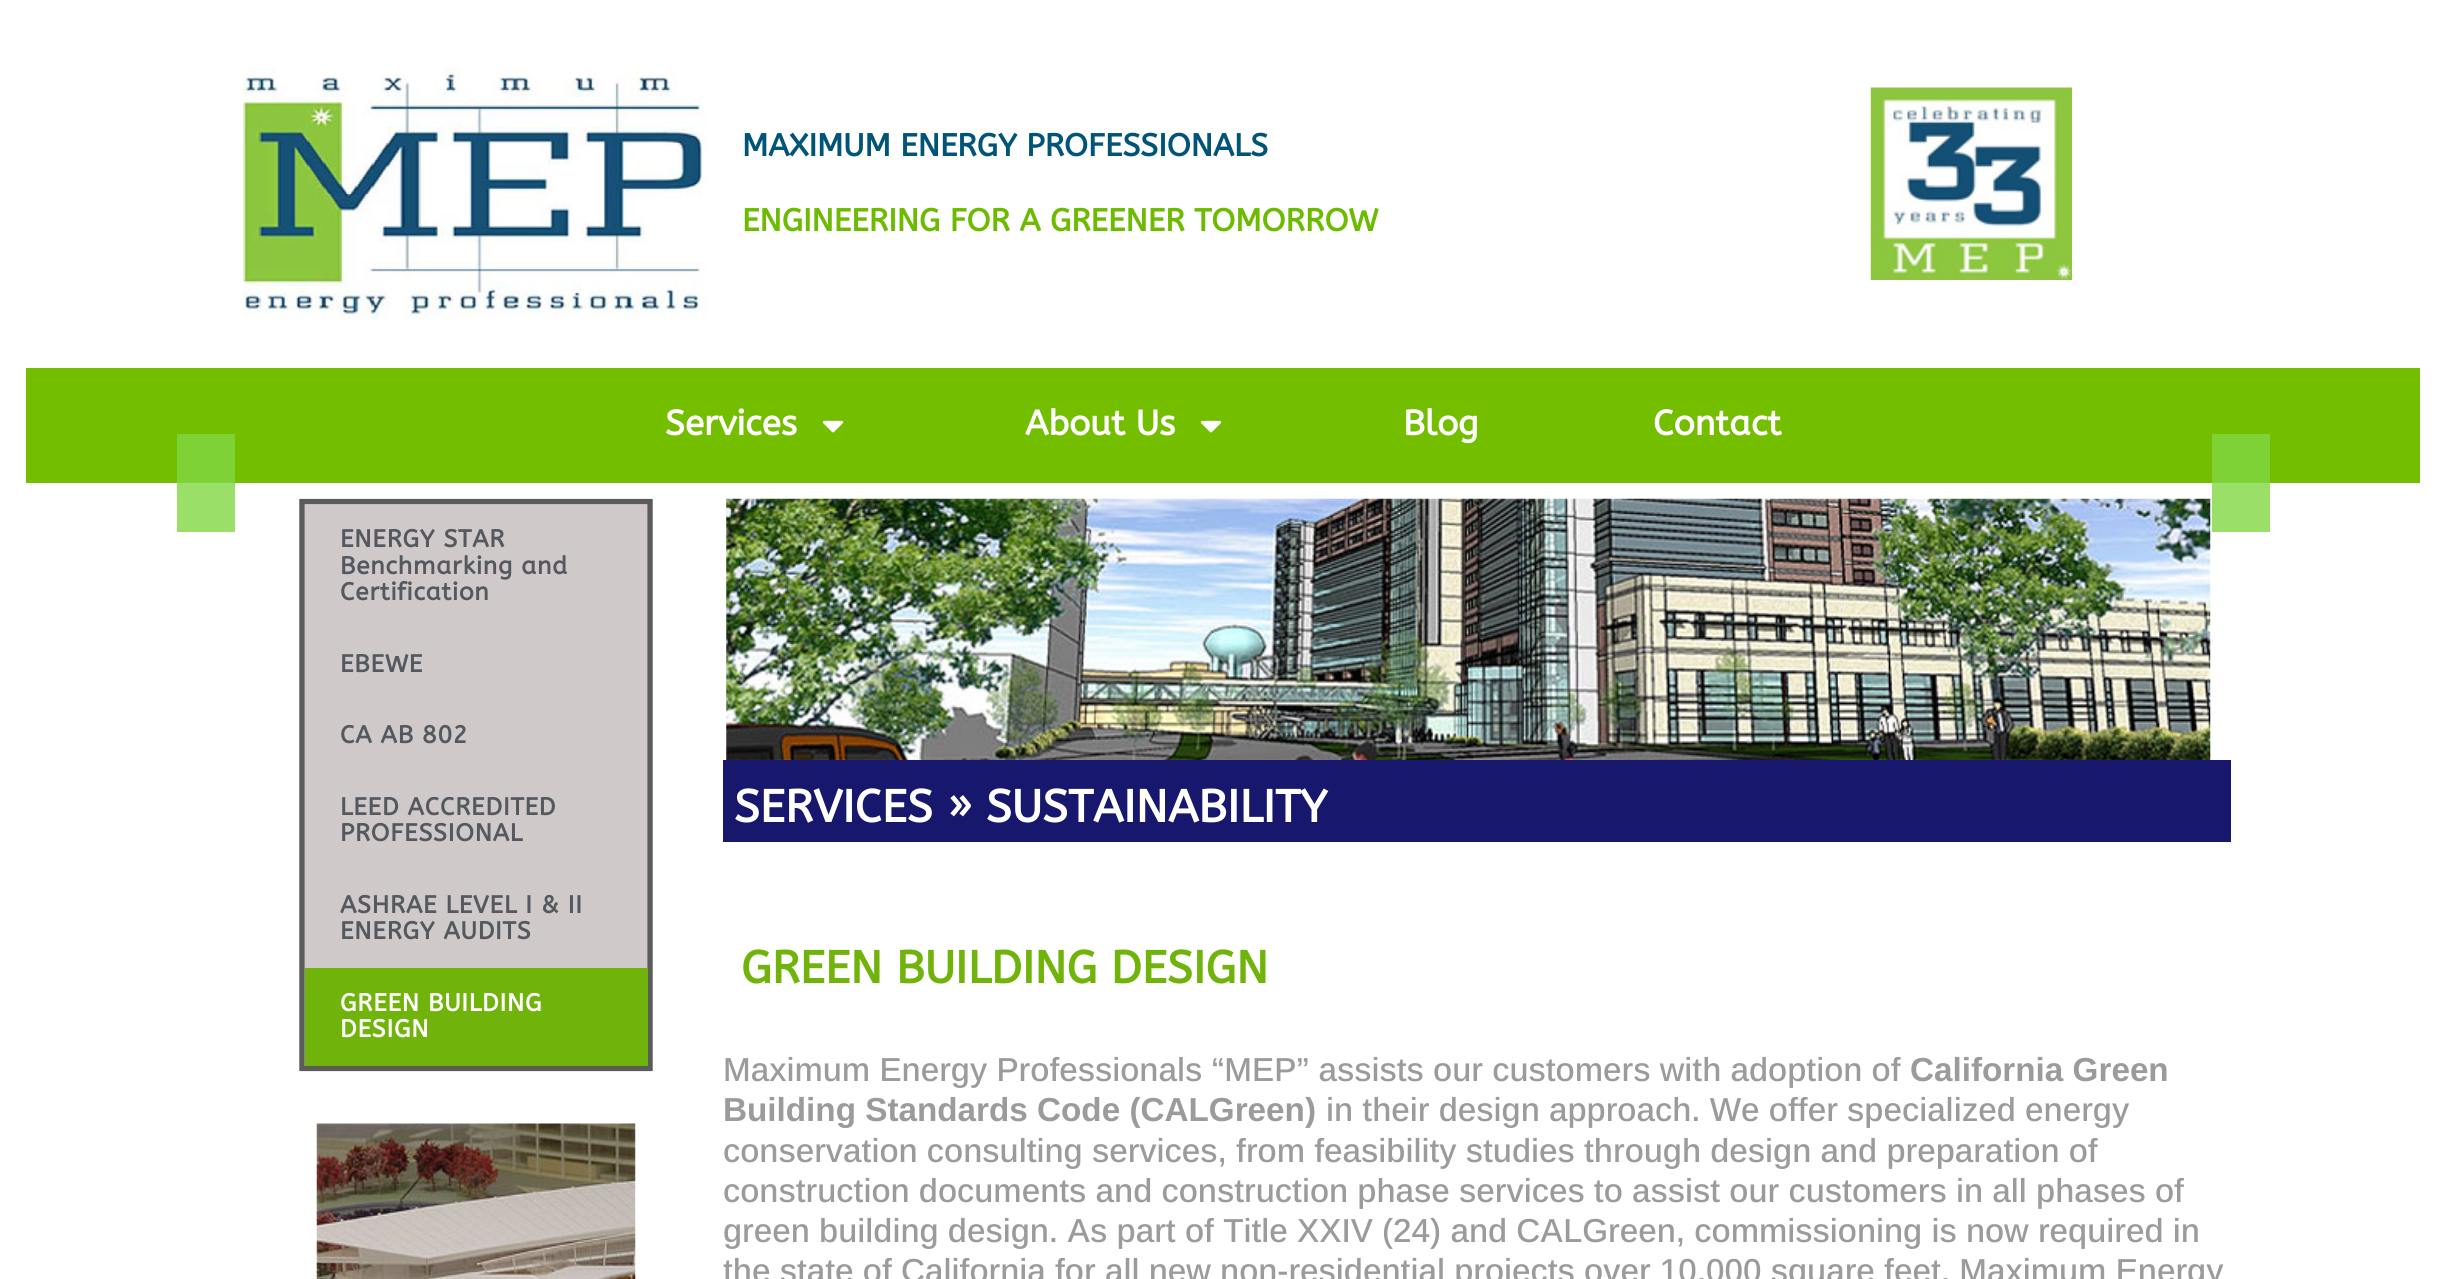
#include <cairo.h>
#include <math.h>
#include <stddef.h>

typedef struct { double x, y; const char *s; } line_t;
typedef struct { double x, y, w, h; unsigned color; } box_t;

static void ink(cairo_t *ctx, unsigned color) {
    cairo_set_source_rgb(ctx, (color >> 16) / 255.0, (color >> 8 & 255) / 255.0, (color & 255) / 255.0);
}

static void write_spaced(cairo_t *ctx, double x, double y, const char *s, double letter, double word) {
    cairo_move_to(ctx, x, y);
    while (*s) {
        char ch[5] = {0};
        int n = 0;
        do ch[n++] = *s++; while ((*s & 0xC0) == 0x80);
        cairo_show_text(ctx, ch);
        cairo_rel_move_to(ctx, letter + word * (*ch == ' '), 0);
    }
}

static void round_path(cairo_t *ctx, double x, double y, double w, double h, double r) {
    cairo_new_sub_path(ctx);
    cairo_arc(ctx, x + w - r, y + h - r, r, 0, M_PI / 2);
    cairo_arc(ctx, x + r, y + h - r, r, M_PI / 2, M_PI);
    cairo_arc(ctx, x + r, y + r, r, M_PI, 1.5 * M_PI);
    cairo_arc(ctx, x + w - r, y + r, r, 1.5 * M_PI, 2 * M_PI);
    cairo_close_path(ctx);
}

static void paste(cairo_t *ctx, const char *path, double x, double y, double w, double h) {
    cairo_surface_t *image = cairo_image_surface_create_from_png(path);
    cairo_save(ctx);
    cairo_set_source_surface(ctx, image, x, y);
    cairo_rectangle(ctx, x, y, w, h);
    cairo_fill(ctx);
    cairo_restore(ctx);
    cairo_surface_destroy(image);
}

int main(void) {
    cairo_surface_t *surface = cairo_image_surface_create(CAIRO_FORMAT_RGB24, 2446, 1279);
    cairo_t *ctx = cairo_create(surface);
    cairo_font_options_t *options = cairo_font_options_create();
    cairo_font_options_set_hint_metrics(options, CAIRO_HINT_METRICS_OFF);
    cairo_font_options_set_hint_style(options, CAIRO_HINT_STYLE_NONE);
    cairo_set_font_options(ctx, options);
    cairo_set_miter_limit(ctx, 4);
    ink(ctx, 0xFFFFFF);
    cairo_paint(ctx);
    ink(ctx, 0x9ADF68);
    cairo_rectangle(ctx, 2212, 483, 58, 49);
    cairo_fill(ctx);
    cairo_rectangle(ctx, 177, 483, 58, 49);
    cairo_fill(ctx);
    paste(ctx, "media/1.png", 243, 68, 464, 252);
    cairo_select_font_face(ctx, "ABeeZee", CAIRO_FONT_SLANT_NORMAL, CAIRO_FONT_WEIGHT_BOLD);
    cairo_set_font_size(ctx, 31.5);
    ink(ctx, 0x005477);
    cairo_move_to(ctx, 742, 156);
    cairo_show_text(ctx, "MAXIMUM ENERGY PROFESSIONALS");
    ink(ctx, 0x6CBB00);
    cairo_move_to(ctx, 742, 231);
    cairo_show_text(ctx, "ENGINEERING FOR A GREENER TOMORROW");
    paste(ctx, "media/2.png", 1870, 87, 202, 193);
    {
        static const box_t items[] = {
            {26, 368, 2394, 115, 0x74BE00},
            {2212, 434, 58, 49, 0x7ED235},
            {177, 434, 58, 49, 0x7ED235},
        };
        for (size_t i = 0; i < sizeof items / sizeof *items; i++) {
            ink(ctx, items[i].color);
            cairo_rectangle(ctx, items[i].x, items[i].y, items[i].w, items[i].h);
            cairo_fill(ctx);
        }
    }
    cairo_set_font_size(ctx, 35);
    ink(ctx, 0xFFFFFF);
    cairo_move_to(ctx, 665, 435);
    cairo_show_text(ctx, "Services");
    paste(ctx, "media/3.png", 822, 420, 22, 13);
    cairo_move_to(ctx, 1025, 435);
    cairo_show_text(ctx, "About Us");
    paste(ctx, "media/3.png", 1200, 420, 22, 13);
    cairo_move_to(ctx, 1403, 435);
    cairo_show_text(ctx, "Blog");
    cairo_move_to(ctx, 1653, 435);
    cairo_show_text(ctx, "Contact");
    ink(ctx, 0xD0C9C9);
    round_path(ctx, 299, 499, 354, 572, 2);
    cairo_fill(ctx);
    cairo_new_path(ctx);
    cairo_move_to(ctx, 302, 501.5);
    cairo_line_to(ctx, 650, 501.5);
    cairo_line_to(ctx, 650, 1068.5);
    cairo_line_to(ctx, 302, 1068.5);
    cairo_close_path(ctx);
    ink(ctx, 0x5B5B5B);
    cairo_set_line_width(ctx, 5.2);
    cairo_stroke(ctx);
    cairo_set_font_size(ctx, 24.5);
    ink(ctx, 0x54595F);
    {
        static const line_t items[] = {
            {340, 547, "ENERGY STAR"},
            {340, 574, "Benchmarking and"},
            {340, 600, "Certification"},
            {340, 672, "EBEWE"},
            {340, 743, "CA AB 802"},
            {340, 815, "LEED ACCREDITED"},
            {340, 841, "PROFESSIONAL"},
            {340, 913, "ASHRAE LEVEL I & II"},
            {340, 939, "ENERGY AUDITS"},
        };
        for (size_t i = 0; i < sizeof items / sizeof *items; i++) {
            write_spaced(ctx, items[i].x, items[i].y, items[i].s, 0.75, 0);
        }
    }
    ink(ctx, 0x70B30A);
    cairo_rectangle(ctx, 305, 968, 343, 98);
    cairo_fill(ctx);
    ink(ctx, 0xFFFFFF);
    write_spaced(ctx, 340, 1011, "GREEN BUILDING", 0.75, 0);
    write_spaced(ctx, 340, 1037, "DESIGN", 0.75, 0);
    paste(ctx, "media/4.png", 316, 1123, 320, 156);
    paste(ctx, "media/5.png", 726, 498, 1485, 262);
    ink(ctx, 0x16176D);
    cairo_rectangle(ctx, 723, 760, 1508, 82);
    cairo_fill(ctx);
    cairo_set_font_size(ctx, 45.5);
    ink(ctx, 0xFFFFFF);
    cairo_move_to(ctx, 734, 822);
    cairo_show_text(ctx, "SERVICES » SUSTAINABILITY");
    ink(ctx, 0x70B30A);
    cairo_move_to(ctx, 741, 983);
    cairo_show_text(ctx, "GREEN BUILDING DESIGN");
    cairo_select_font_face(ctx, "Arimo Medium", CAIRO_FONT_SLANT_NORMAL, CAIRO_FONT_WEIGHT_NORMAL);
    cairo_set_font_size(ctx, 33.25);
    ink(ctx, 0x9B9B9B);
    cairo_move_to(ctx, 723, 1081);
    cairo_show_text(ctx, "Maximum Energy Professionals “MEP” assists our customers with adoption of");
    cairo_select_font_face(ctx, "Arimo", CAIRO_FONT_SLANT_NORMAL, CAIRO_FONT_WEIGHT_BOLD);
    cairo_move_to(ctx, 1910, 1081);
    cairo_show_text(ctx, "California Green");
    cairo_move_to(ctx, 723, 1121);
    cairo_show_text(ctx, "Building Standards Code (CALGreen)");
    cairo_select_font_face(ctx, "Arimo Medium", CAIRO_FONT_SLANT_NORMAL, CAIRO_FONT_WEIGHT_NORMAL);
    {
        static const line_t items[] = {
            {1326, 1121, "in their design approach. We offer specialized energy"},
            {723, 1162, "conservation consulting services, from feasibility studies through design and preparation of"},
            {723, 1202, "construction documents and construction phase services to assist our customers in all phases of"},
            {723, 1242, "green building design. As part of Title XXIV (24) and CALGreen, commissioning is now required in"},
            {723, 1282, "the state of California for all new non-residential projects over 10,000 square feet. Maximum Energy"},
        };
        for (size_t i = 0; i < sizeof items / sizeof *items; i++) {
            cairo_move_to(ctx, items[i].x, items[i].y);
            cairo_show_text(ctx, items[i].s);
        }
    }
    cairo_surface_write_to_png(surface, "image.png");
    cairo_font_options_destroy(options);
    cairo_destroy(ctx);
    cairo_surface_destroy(surface);
    return 0;
}
